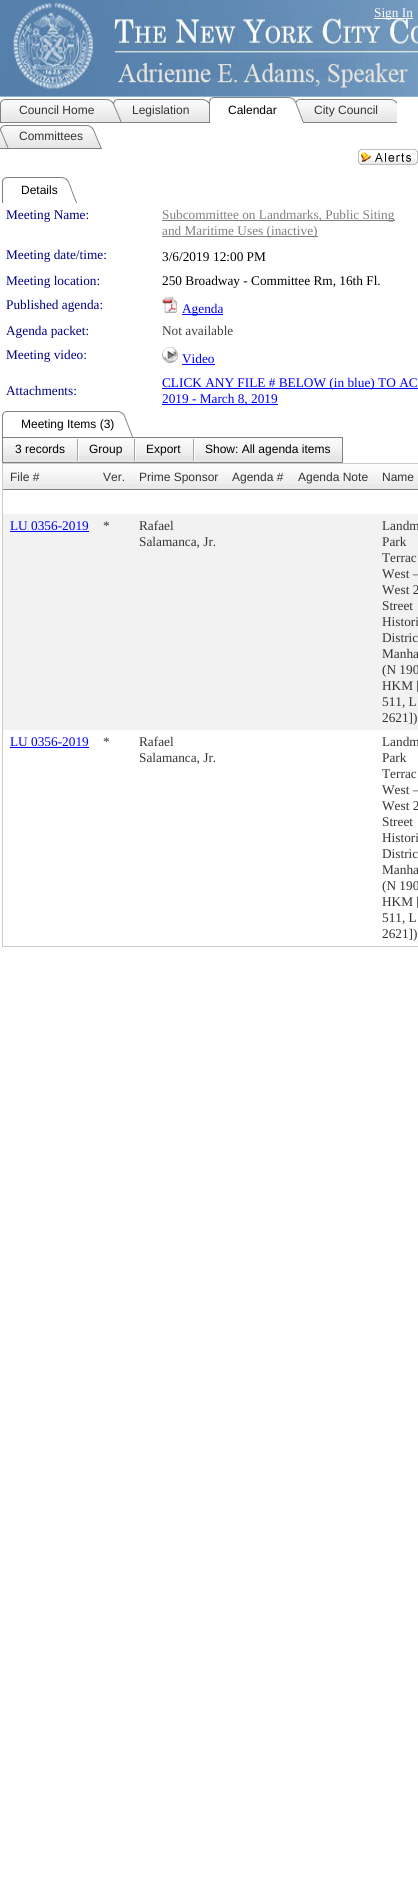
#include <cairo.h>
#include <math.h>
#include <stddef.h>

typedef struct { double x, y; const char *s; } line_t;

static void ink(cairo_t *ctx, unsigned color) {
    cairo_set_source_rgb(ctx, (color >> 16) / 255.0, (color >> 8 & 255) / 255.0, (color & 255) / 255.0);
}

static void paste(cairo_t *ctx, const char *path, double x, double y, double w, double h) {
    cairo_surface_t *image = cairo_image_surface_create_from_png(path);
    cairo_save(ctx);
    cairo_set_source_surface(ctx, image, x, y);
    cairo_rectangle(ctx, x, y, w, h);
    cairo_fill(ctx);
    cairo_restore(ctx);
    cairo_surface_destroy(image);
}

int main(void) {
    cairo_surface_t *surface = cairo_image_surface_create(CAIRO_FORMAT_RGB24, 418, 1903);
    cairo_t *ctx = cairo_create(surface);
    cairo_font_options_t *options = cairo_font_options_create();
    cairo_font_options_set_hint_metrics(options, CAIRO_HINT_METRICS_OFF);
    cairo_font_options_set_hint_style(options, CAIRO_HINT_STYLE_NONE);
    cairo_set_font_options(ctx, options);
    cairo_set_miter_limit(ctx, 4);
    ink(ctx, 0xFFFFFF);
    cairo_paint(ctx);
    ink(ctx, 0x8CB1D2);
    cairo_rectangle(ctx, 0, 96, 418, 1);
    cairo_fill(ctx);
    paste(ctx, "media/1.png", 0, 0, 418, 96);
    ink(ctx, 0xFFFFFF);
    cairo_rectangle(ctx, 374, 18, 39, 1);
    cairo_fill(ctx);
    cairo_select_font_face(ctx, "Liberation Serif", CAIRO_FONT_SLANT_NORMAL, CAIRO_FONT_WEIGHT_NORMAL);
    cairo_set_font_size(ctx, 13.3);
    cairo_move_to(ctx, 374, 17);
    cairo_show_text(ctx, "Sign In");
    paste(ctx, "media/2.png", 0, 99, 9, 24);
    paste(ctx, "media/3.png", 9, 99, 104, 24);
    cairo_select_font_face(ctx, "Liberation Sans", CAIRO_FONT_SLANT_NORMAL, CAIRO_FONT_WEIGHT_NORMAL);
    cairo_set_font_size(ctx, 12);
    ink(ctx, 0x333333);
    cairo_move_to(ctx, 19, 114);
    cairo_show_text(ctx, "Council Home");
    paste(ctx, "media/4.png", 113, 99, 9, 24);
    paste(ctx, "media/5.png", 122, 99, 87, 24);
    cairo_move_to(ctx, 132, 114);
    cairo_show_text(ctx, "Legislation");
    paste(ctx, "media/6.png", 209, 97, 9, 26);
    paste(ctx, "media/7.png", 218, 97, 77, 5);
    ink(ctx, 0x000000);
    cairo_move_to(ctx, 228, 114);
    cairo_show_text(ctx, "Calendar");
    paste(ctx, "media/8.png", 295, 99, 9, 24);
    paste(ctx, "media/9.png", 304, 99, 93, 24);
    ink(ctx, 0x333333);
    cairo_move_to(ctx, 314, 114);
    cairo_show_text(ctx, "City Council");
    paste(ctx, "media/10.png", 0, 125, 9, 24);
    paste(ctx, "media/11.png", 9, 125, 93, 24);
    cairo_move_to(ctx, 19, 140);
    cairo_show_text(ctx, "Committees");
    paste(ctx, "media/12.png", 358, 149, 60, 16);
    paste(ctx, "media/13.png", 2, 177, 9, 26);
    paste(ctx, "media/14.png", 11, 177, 66, 26);
    ink(ctx, 0x000000);
    cairo_move_to(ctx, 21, 194);
    cairo_show_text(ctx, "Details");
    cairo_select_font_face(ctx, "Liberation Serif", CAIRO_FONT_SLANT_NORMAL, CAIRO_FONT_WEIGHT_NORMAL);
    cairo_set_font_size(ctx, 13.3);
    ink(ctx, 0x000080);
    cairo_move_to(ctx, 6, 219);
    cairo_show_text(ctx, "Meeting Name:");
    ink(ctx, 0x808080);
    cairo_rectangle(ctx, 162, 220, 233, 1);
    cairo_fill(ctx);
    cairo_move_to(ctx, 162, 219);
    cairo_show_text(ctx, "Subcommittee on Landmarks, Public Siting");
    cairo_rectangle(ctx, 162, 236, 156, 1);
    cairo_fill(ctx);
    cairo_move_to(ctx, 162, 235);
    cairo_show_text(ctx, "and Maritime Uses (inactive)");
    ink(ctx, 0x000080);
    cairo_move_to(ctx, 6, 259);
    cairo_show_text(ctx, "Meeting date/time:");
    ink(ctx, 0x000000);
    cairo_move_to(ctx, 162, 261);
    cairo_show_text(ctx, "3/6/2019");
    cairo_move_to(ctx, 213, 261);
    cairo_show_text(ctx, "12:00 PM");
    ink(ctx, 0x000080);
    cairo_move_to(ctx, 6, 285);
    cairo_show_text(ctx, "Meeting location:");
    ink(ctx, 0x000000);
    cairo_move_to(ctx, 162, 285);
    cairo_show_text(ctx, "250 Broadway - Committee Rm, 16th Fl.");
    ink(ctx, 0x000080);
    cairo_move_to(ctx, 6, 309);
    cairo_show_text(ctx, "Published agenda:");
    paste(ctx, "media/15.png", 162, 297, 15, 16);
    ink(ctx, 0x0000FF);
    cairo_rectangle(ctx, 182, 314, 41, 1);
    cairo_fill(ctx);
    cairo_move_to(ctx, 182, 313);
    cairo_show_text(ctx, "Agenda");
    ink(ctx, 0x000080);
    cairo_move_to(ctx, 6, 335);
    cairo_show_text(ctx, "Agenda packet:");
    ink(ctx, 0x3D3D3D);
    cairo_move_to(ctx, 162, 335);
    cairo_show_text(ctx, "Not available");
    ink(ctx, 0x000080);
    cairo_move_to(ctx, 6, 359);
    cairo_show_text(ctx, "Meeting video:");
    paste(ctx, "media/16.png", 162, 347, 16, 16);
    ink(ctx, 0x0000FF);
    cairo_move_to(ctx, 182, 363);
    cairo_show_text(ctx, "Video");
    cairo_rectangle(ctx, 182, 364, 33, 1);
    cairo_fill(ctx);
    ink(ctx, 0x000080);
    cairo_move_to(ctx, 6, 395);
    cairo_show_text(ctx, "Attachments:");
    ink(ctx, 0x0000FF);
    cairo_rectangle(ctx, 162, 388, 256, 1);
    cairo_fill(ctx);
    cairo_move_to(ctx, 162, 387);
    cairo_show_text(ctx, "CLICK ANY FILE # BELOW (in blue) TO AC");
    cairo_rectangle(ctx, 162, 404, 116, 1);
    cairo_fill(ctx);
    cairo_move_to(ctx, 162, 403);
    cairo_show_text(ctx, "2019 - March 8, 2019");
    paste(ctx, "media/17.png", 2, 411, 9, 26);
    paste(ctx, "media/18.png", 11, 411, 122, 26);
    cairo_select_font_face(ctx, "Liberation Sans", CAIRO_FONT_SLANT_NORMAL, CAIRO_FONT_WEIGHT_NORMAL);
    cairo_set_font_size(ctx, 12);
    ink(ctx, 0x000000);
    cairo_move_to(ctx, 21, 428);
    cairo_show_text(ctx, "Meeting Items (3)");
    ink(ctx, 0xE6E6E6);
    cairo_rectangle(ctx, 3, 456, 339, 6);
    cairo_fill(ctx);
    paste(ctx, "media/19.png", 3, 438, 339, 18);
    cairo_rectangle(ctx, 2.5, 437.5, 340, 25);
    ink(ctx, 0x828282);
    cairo_set_line_width(ctx, 1);
    cairo_stroke(ctx);
    ink(ctx, 0x000000);
    cairo_move_to(ctx, 15, 453);
    cairo_show_text(ctx, "3 records");
    paste(ctx, "media/20.png", 77, 439, 2, 22);
    cairo_move_to(ctx, 89, 453);
    cairo_show_text(ctx, "Group");
    paste(ctx, "media/21.png", 134, 439, 2, 22);
    cairo_move_to(ctx, 146, 453);
    cairo_show_text(ctx, "Export");
    paste(ctx, "media/20.png", 193, 439, 2, 22);
    cairo_move_to(ctx, 205, 453);
    cairo_show_text(ctx, "Show: All agenda items");
    cairo_rectangle(ctx, 2.5, 463.5, 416, 483);
    ink(ctx, 0xCCCCCC);
    cairo_stroke(ctx);
    ink(ctx, 0xEAEAEA);
    cairo_rectangle(ctx, 3, 484, 415, 5);
    cairo_fill(ctx);
    paste(ctx, "media/22.png", 3, 464, 93, 20);
    ink(ctx, 0x828282);
    cairo_rectangle(ctx, 3, 489, 415, 1);
    cairo_fill(ctx);
    ink(ctx, 0x333333);
    cairo_move_to(ctx, 10, 481);
    cairo_show_text(ctx, "File #");
    paste(ctx, "media/23.png", 96, 464, 36, 20);
    cairo_move_to(ctx, 103, 481);
    cairo_show_text(ctx, "Ver.");
    paste(ctx, "media/22.png", 132, 464, 93, 20);
    cairo_move_to(ctx, 139, 481);
    cairo_show_text(ctx, "Prime Sponsor");
    paste(ctx, "media/24.png", 225, 464, 66, 20);
    cairo_move_to(ctx, 232, 481);
    cairo_show_text(ctx, "Agenda #");
    paste(ctx, "media/25.png", 291, 464, 84, 20);
    cairo_move_to(ctx, 298, 481);
    cairo_show_text(ctx, "Agenda Note");
    paste(ctx, "media/26.png", 375, 464, 43, 20);
    cairo_move_to(ctx, 382, 481);
    cairo_show_text(ctx, "Name");
    ink(ctx, 0xF2F2F2);
    cairo_rectangle(ctx, 3, 514, 415, 216);
    cairo_fill(ctx);
    cairo_select_font_face(ctx, "Liberation Serif", CAIRO_FONT_SLANT_NORMAL, CAIRO_FONT_WEIGHT_NORMAL);
    cairo_set_font_size(ctx, 13.3);
    ink(ctx, 0x0000FF);
    cairo_move_to(ctx, 10, 530);
    cairo_show_text(ctx, "LU 0356-2019");
    cairo_rectangle(ctx, 10, 531, 79, 1);
    cairo_fill(ctx);
    ink(ctx, 0x333333);
    {
        static const line_t items[] = {
            {103, 530, "*"},
            {139, 530, "Rafael"},
            {139, 546, "Salamanca, Jr."},
            {382, 530, "Landm"},
            {382, 546, "Park"},
            {382, 562, "Terrac"},
            {382, 578, "West –"},
            {382, 594, "West 2"},
            {382, 610, "Street"},
            {382, 626, "Histori"},
            {382, 642, "Distric"},
            {382, 658, "Manha"},
            {382, 674, "(N 190"},
            {382, 690, "HKM ["},
            {382, 706, "511, L"},
            {382, 722, "2621])"},
        };
        for (size_t i = 0; i < sizeof items / sizeof *items; i++) {
            cairo_move_to(ctx, items[i].x, items[i].y);
            cairo_show_text(ctx, items[i].s);
        }
    }
    ink(ctx, 0x0000FF);
    cairo_move_to(ctx, 10, 746);
    cairo_show_text(ctx, "LU 0356-2019");
    cairo_rectangle(ctx, 10, 747, 79, 1);
    cairo_fill(ctx);
    ink(ctx, 0x333333);
    {
        static const line_t items[] = {
            {103, 746, "*"},
            {139, 746, "Rafael"},
            {139, 762, "Salamanca, Jr."},
            {382, 746, "Landm"},
            {382, 762, "Park"},
            {382, 778, "Terrac"},
            {382, 794, "West –"},
            {382, 810, "West 2"},
            {382, 826, "Street"},
            {382, 842, "Histori"},
            {382, 858, "Distric"},
            {382, 874, "Manha"},
            {382, 890, "(N 190"},
            {382, 906, "HKM ["},
            {382, 922, "511, L"},
            {382, 938, "2621])"},
        };
        for (size_t i = 0; i < sizeof items / sizeof *items; i++) {
            cairo_move_to(ctx, items[i].x, items[i].y);
            cairo_show_text(ctx, items[i].s);
        }
    }
    cairo_surface_write_to_png(surface, "image.png");
    cairo_font_options_destroy(options);
    cairo_destroy(ctx);
    cairo_surface_destroy(surface);
    return 0;
}
